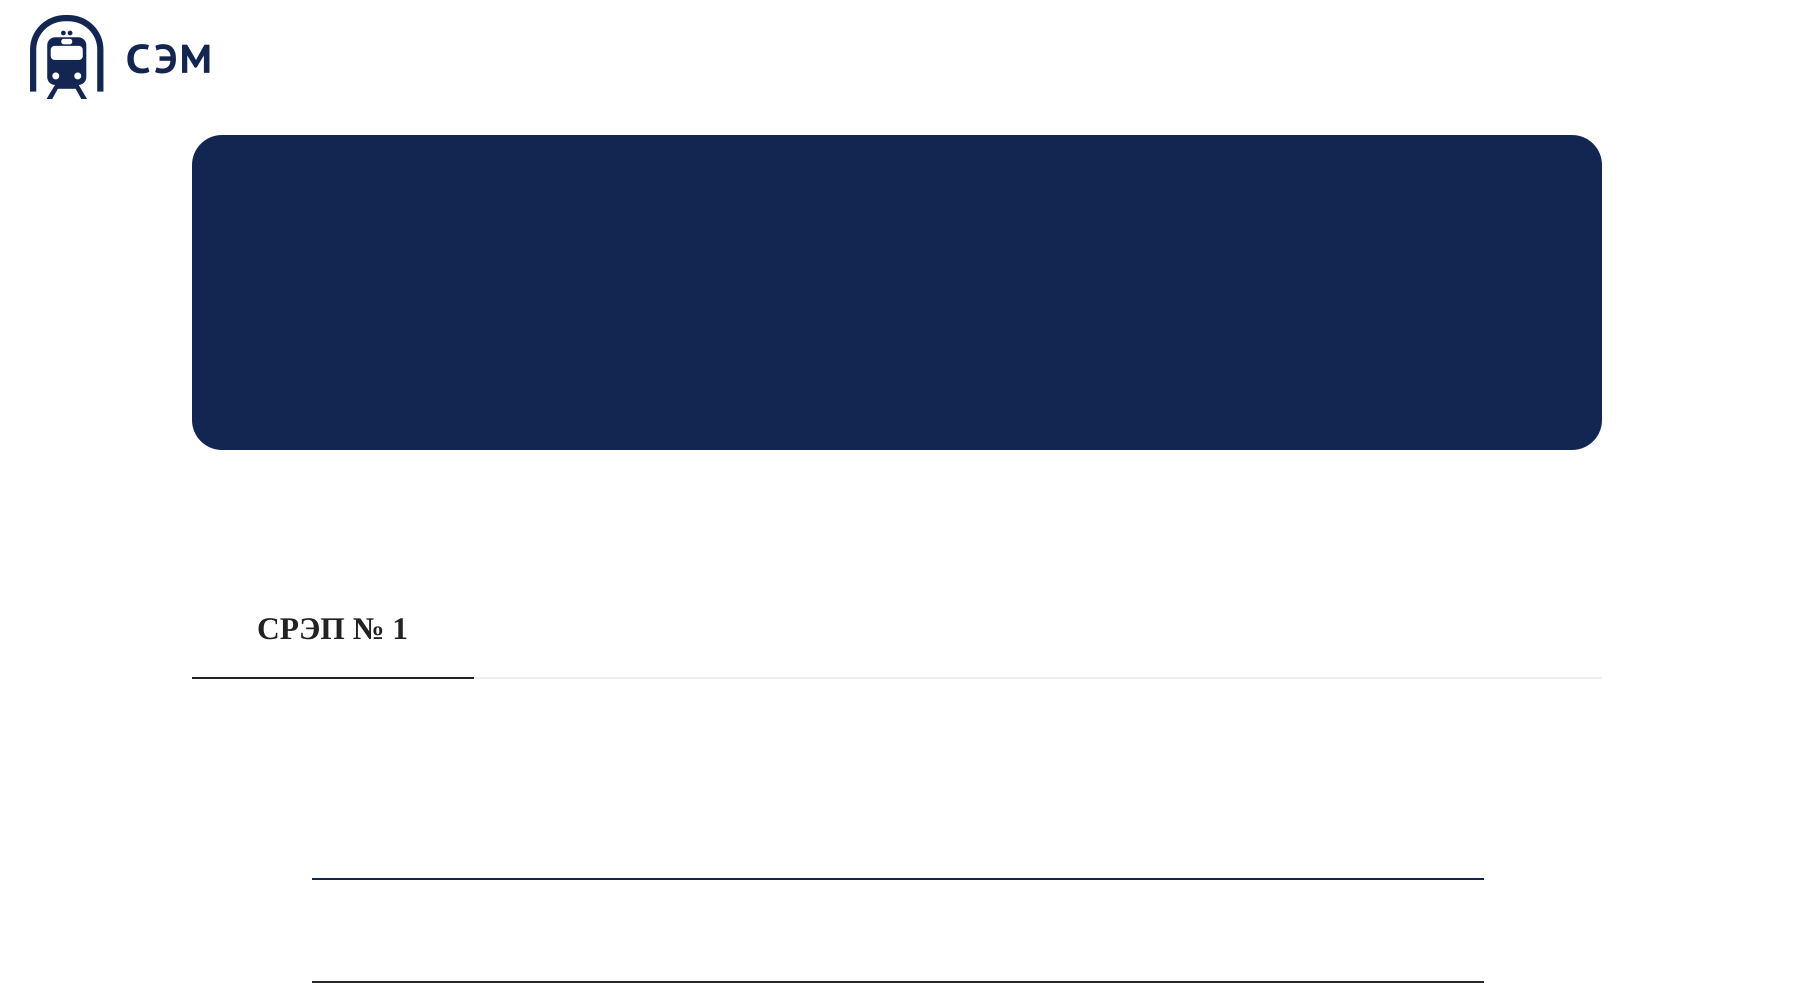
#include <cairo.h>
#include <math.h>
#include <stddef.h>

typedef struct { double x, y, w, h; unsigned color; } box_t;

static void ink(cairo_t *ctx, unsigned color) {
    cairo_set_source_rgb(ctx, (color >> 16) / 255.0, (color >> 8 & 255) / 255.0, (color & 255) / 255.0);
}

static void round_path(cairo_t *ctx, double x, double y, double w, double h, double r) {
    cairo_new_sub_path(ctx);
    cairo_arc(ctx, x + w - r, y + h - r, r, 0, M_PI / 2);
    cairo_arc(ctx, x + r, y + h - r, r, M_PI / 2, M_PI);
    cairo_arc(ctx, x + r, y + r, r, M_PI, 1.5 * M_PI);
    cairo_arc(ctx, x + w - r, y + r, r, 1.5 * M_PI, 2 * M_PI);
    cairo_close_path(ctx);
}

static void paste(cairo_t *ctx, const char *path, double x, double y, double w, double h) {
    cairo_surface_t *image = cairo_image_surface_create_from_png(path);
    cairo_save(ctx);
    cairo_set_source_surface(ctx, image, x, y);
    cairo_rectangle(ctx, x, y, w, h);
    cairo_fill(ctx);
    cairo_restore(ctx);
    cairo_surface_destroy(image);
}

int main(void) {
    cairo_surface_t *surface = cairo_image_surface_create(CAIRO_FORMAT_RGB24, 1794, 993);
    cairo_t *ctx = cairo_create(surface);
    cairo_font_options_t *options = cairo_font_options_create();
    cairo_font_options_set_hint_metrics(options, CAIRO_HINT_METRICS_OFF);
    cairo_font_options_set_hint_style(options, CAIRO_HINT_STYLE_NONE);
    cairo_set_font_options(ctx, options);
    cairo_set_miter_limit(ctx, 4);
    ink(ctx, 0xFFFFFF);
    cairo_paint(ctx);
    paste(ctx, "media/1.png", 30, 15, 180, 84);
    ink(ctx, 0x132651);
    round_path(ctx, 192, 135, 1410, 315, 30);
    cairo_fill(ctx);
    ink(ctx, 0x222222);
    cairo_rectangle(ctx, 192, 677, 282, 2);
    cairo_fill(ctx);
    cairo_select_font_face(ctx, "Liberation Serif", CAIRO_FONT_SLANT_NORMAL, CAIRO_FONT_WEIGHT_BOLD);
    cairo_set_font_size(ctx, 31.5);
    cairo_move_to(ctx, 257, 639);
    cairo_show_text(ctx, "СРЭП № 1");
    {
        static const box_t items[] = {
            {474, 677, 1128, 2, 0xEEEEEE},
            {312, 878, 1172, 2, 0x132651},
            {312, 981, 1172, 2, 0x2A292A},
        };
        for (size_t i = 0; i < sizeof items / sizeof *items; i++) {
            ink(ctx, items[i].color);
            cairo_rectangle(ctx, items[i].x, items[i].y, items[i].w, items[i].h);
            cairo_fill(ctx);
        }
    }
    cairo_surface_write_to_png(surface, "image.png");
    cairo_font_options_destroy(options);
    cairo_destroy(ctx);
    cairo_surface_destroy(surface);
    return 0;
}
